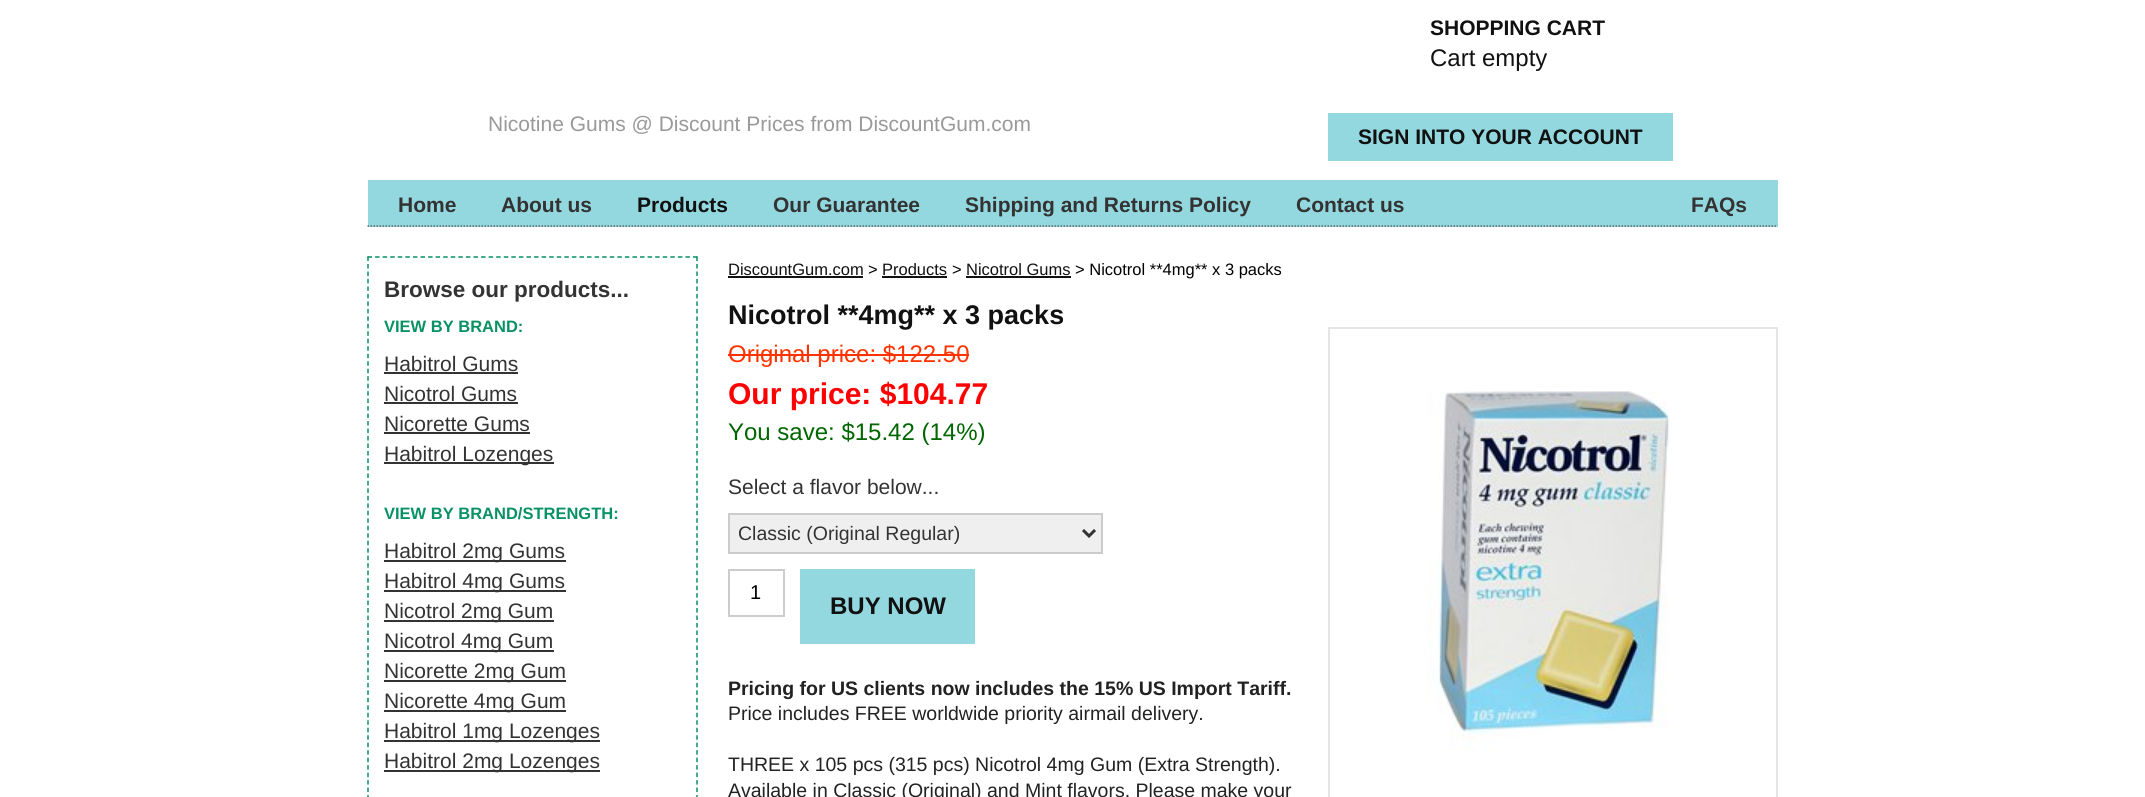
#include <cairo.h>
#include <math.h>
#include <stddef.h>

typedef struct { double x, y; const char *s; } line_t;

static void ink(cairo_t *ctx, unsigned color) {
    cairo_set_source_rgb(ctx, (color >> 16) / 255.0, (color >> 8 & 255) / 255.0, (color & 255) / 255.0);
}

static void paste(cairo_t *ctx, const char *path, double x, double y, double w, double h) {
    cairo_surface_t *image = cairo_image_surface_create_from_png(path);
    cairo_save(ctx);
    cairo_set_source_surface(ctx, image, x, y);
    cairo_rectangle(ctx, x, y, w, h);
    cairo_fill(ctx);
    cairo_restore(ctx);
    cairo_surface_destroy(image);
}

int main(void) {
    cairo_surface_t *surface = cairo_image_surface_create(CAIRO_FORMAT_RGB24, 2145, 797);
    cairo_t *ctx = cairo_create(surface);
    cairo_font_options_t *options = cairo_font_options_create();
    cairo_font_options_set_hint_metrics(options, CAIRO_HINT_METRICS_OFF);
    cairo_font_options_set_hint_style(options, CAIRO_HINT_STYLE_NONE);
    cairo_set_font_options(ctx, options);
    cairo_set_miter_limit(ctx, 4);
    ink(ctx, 0xFFFFFF);
    cairo_paint(ctx);
    cairo_select_font_face(ctx, "Liberation Sans", CAIRO_FONT_SLANT_NORMAL, CAIRO_FONT_WEIGHT_NORMAL);
    cairo_set_font_size(ctx, 21);
    ink(ctx, 0x999999);
    cairo_move_to(ctx, 488, 131);
    cairo_show_text(ctx, "Nicotine Gums @ Discount Prices from DiscountGum.com");
    cairo_select_font_face(ctx, "Liberation Sans", CAIRO_FONT_SLANT_NORMAL, CAIRO_FONT_WEIGHT_BOLD);
    ink(ctx, 0x111111);
    cairo_move_to(ctx, 1430, 35);
    cairo_show_text(ctx, "SHOPPING CART");
    cairo_select_font_face(ctx, "Liberation Sans", CAIRO_FONT_SLANT_NORMAL, CAIRO_FONT_WEIGHT_NORMAL);
    cairo_set_font_size(ctx, 24);
    cairo_move_to(ctx, 1430, 66);
    cairo_show_text(ctx, "Cart empty");
    ink(ctx, 0x93D8DF);
    cairo_rectangle(ctx, 1328, 113, 345, 48);
    cairo_fill(ctx);
    cairo_select_font_face(ctx, "Liberation Sans", CAIRO_FONT_SLANT_NORMAL, CAIRO_FONT_WEIGHT_BOLD);
    cairo_set_font_size(ctx, 21);
    ink(ctx, 0x111111);
    cairo_move_to(ctx, 1358, 144);
    cairo_show_text(ctx, "SIGN INTO YOUR ACCOUNT");
    ink(ctx, 0x93D8DF);
    cairo_rectangle(ctx, 368, 180, 1410, 47);
    cairo_fill(ctx);
    cairo_new_path(ctx);
    cairo_move_to(ctx, 367.5, 226);
    cairo_line_to(ctx, 1777.5, 226);
    ink(ctx, 0x666666);
    cairo_set_line_width(ctx, 1.5);
    cairo_set_dash(ctx, (double[]){1.5, 1.5}, 2, 0);
    cairo_stroke(ctx);
    ink(ctx, 0x333333);
    cairo_move_to(ctx, 398, 212);
    cairo_show_text(ctx, "Home");
    cairo_move_to(ctx, 501, 212);
    cairo_show_text(ctx, "About us");
    ink(ctx, 0x111111);
    cairo_move_to(ctx, 637, 212);
    cairo_show_text(ctx, "Products");
    ink(ctx, 0x333333);
    {
        static const line_t items[] = {
            {773, 212, "Our Guarantee"},
            {965, 212, "Shipping and Returns Policy"},
            {1296, 212, "Contact us"},
            {1691, 212, "FAQs"},
        };
        for (size_t i = 0; i < sizeof items / sizeof *items; i++) {
            cairo_move_to(ctx, items[i].x, items[i].y);
            cairo_show_text(ctx, items[i].s);
        }
    }
    cairo_new_path(ctx);
    cairo_move_to(ctx, 367.5, 257);
    cairo_line_to(ctx, 697.5, 257);
    ink(ctx, 0x089163);
    cairo_set_dash(ctx, (double[]){4.5, 3.07}, 2, 0);
    cairo_stroke(ctx);
    cairo_new_path(ctx);
    cairo_move_to(ctx, 697, 256.5);
    cairo_line_to(ctx, 697, 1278);
    cairo_set_dash(ctx, (double[]){4.5, 2.98}, 2, 0);
    cairo_stroke(ctx);
    cairo_new_path(ctx);
    cairo_move_to(ctx, 368, 256.5);
    cairo_line_to(ctx, 368, 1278);
    cairo_stroke(ctx);
    cairo_set_font_size(ctx, 22.5);
    ink(ctx, 0x333333);
    cairo_move_to(ctx, 384, 297);
    cairo_show_text(ctx, "Browse our products...");
    cairo_set_font_size(ctx, 16.5);
    ink(ctx, 0x089163);
    cairo_move_to(ctx, 384, 332);
    cairo_show_text(ctx, "VIEW BY BRAND:");
    cairo_select_font_face(ctx, "Liberation Sans", CAIRO_FONT_SLANT_NORMAL, CAIRO_FONT_WEIGHT_NORMAL);
    cairo_set_font_size(ctx, 21);
    ink(ctx, 0x333333);
    cairo_move_to(ctx, 384, 371);
    cairo_show_text(ctx, "Habitrol Gums");
    cairo_rectangle(ctx, 384, 372, 134, 2);
    cairo_fill(ctx);
    cairo_move_to(ctx, 384, 401);
    cairo_show_text(ctx, "Nicotrol Gums");
    cairo_rectangle(ctx, 384, 402, 134, 2);
    cairo_fill(ctx);
    cairo_move_to(ctx, 384, 431);
    cairo_show_text(ctx, "Nicorette Gums");
    cairo_rectangle(ctx, 384, 432, 146, 2);
    cairo_fill(ctx);
    cairo_rectangle(ctx, 384, 462, 170, 2);
    cairo_fill(ctx);
    cairo_move_to(ctx, 384, 461);
    cairo_show_text(ctx, "Habitrol Lozenges");
    cairo_select_font_face(ctx, "Liberation Sans", CAIRO_FONT_SLANT_NORMAL, CAIRO_FONT_WEIGHT_BOLD);
    cairo_set_font_size(ctx, 16.5);
    ink(ctx, 0x089163);
    cairo_move_to(ctx, 384, 519);
    cairo_show_text(ctx, "VIEW BY BRAND/STRENGTH:");
    ink(ctx, 0x333333);
    cairo_rectangle(ctx, 384, 560, 182, 2);
    cairo_fill(ctx);
    cairo_select_font_face(ctx, "Liberation Sans", CAIRO_FONT_SLANT_NORMAL, CAIRO_FONT_WEIGHT_NORMAL);
    cairo_set_font_size(ctx, 21);
    cairo_move_to(ctx, 384, 558);
    cairo_show_text(ctx, "Habitrol 2mg Gums");
    cairo_rectangle(ctx, 384, 590, 182, 2);
    cairo_fill(ctx);
    cairo_move_to(ctx, 384, 588);
    cairo_show_text(ctx, "Habitrol 4mg Gums");
    cairo_rectangle(ctx, 384, 620, 170, 2);
    cairo_fill(ctx);
    cairo_move_to(ctx, 384, 618);
    cairo_show_text(ctx, "Nicotrol 2mg Gum");
    cairo_rectangle(ctx, 384, 650, 170, 2);
    cairo_fill(ctx);
    cairo_move_to(ctx, 384, 648);
    cairo_show_text(ctx, "Nicotrol 4mg Gum");
    cairo_rectangle(ctx, 384, 680, 182, 2);
    cairo_fill(ctx);
    cairo_move_to(ctx, 384, 678);
    cairo_show_text(ctx, "Nicorette 2mg Gum");
    cairo_rectangle(ctx, 384, 710, 182, 2);
    cairo_fill(ctx);
    cairo_move_to(ctx, 384, 708);
    cairo_show_text(ctx, "Nicorette 4mg Gum");
    cairo_rectangle(ctx, 384, 740, 216, 2);
    cairo_fill(ctx);
    cairo_move_to(ctx, 384, 738);
    cairo_show_text(ctx, "Habitrol 1mg Lozenges");
    cairo_rectangle(ctx, 384, 770, 216, 2);
    cairo_fill(ctx);
    cairo_move_to(ctx, 384, 768);
    cairo_show_text(ctx, "Habitrol 2mg Lozenges");
    cairo_set_font_size(ctx, 16.5);
    ink(ctx, 0x111111);
    cairo_move_to(ctx, 728, 275);
    cairo_show_text(ctx, "DiscountGum.com");
    cairo_rectangle(ctx, 728, 276, 135, 2);
    cairo_fill(ctx);
    ink(ctx, 0x000000);
    cairo_move_to(ctx, 868, 275);
    cairo_show_text(ctx, ">");
    ink(ctx, 0x111111);
    cairo_move_to(ctx, 882, 275);
    cairo_show_text(ctx, "Products");
    cairo_rectangle(ctx, 882, 276, 65, 2);
    cairo_fill(ctx);
    ink(ctx, 0x000000);
    cairo_move_to(ctx, 952, 275);
    cairo_show_text(ctx, ">");
    ink(ctx, 0x111111);
    cairo_move_to(ctx, 966, 275);
    cairo_show_text(ctx, "Nicotrol Gums");
    cairo_rectangle(ctx, 966, 276, 105, 2);
    cairo_fill(ctx);
    ink(ctx, 0x000000);
    cairo_move_to(ctx, 1075, 275);
    cairo_show_text(ctx, "> Nicotrol **4mg** x 3 packs");
    cairo_select_font_face(ctx, "Liberation Sans", CAIRO_FONT_SLANT_NORMAL, CAIRO_FONT_WEIGHT_BOLD);
    cairo_set_font_size(ctx, 27);
    ink(ctx, 0x111111);
    cairo_move_to(ctx, 728, 324);
    cairo_show_text(ctx, "Nicotrol **4mg** x 3 packs");
    cairo_select_font_face(ctx, "Liberation Sans", CAIRO_FONT_SLANT_NORMAL, CAIRO_FONT_WEIGHT_NORMAL);
    cairo_set_font_size(ctx, 24);
    ink(ctx, 0xFF3300);
    cairo_move_to(ctx, 728, 362);
    cairo_show_text(ctx, "Original price: $122.50");
    cairo_rectangle(ctx, 728, 354, 241, 2);
    cairo_fill(ctx);
    cairo_rectangle(ctx, 1329, 328, 448, 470);
    ink(ctx, 0xE5E5E5);
    cairo_set_line_width(ctx, 2);
    cairo_set_dash(ctx, NULL, 0, 0);
    cairo_stroke(ctx);
    paste(ctx, "media/1.png", 1426, 391, 245, 360);
    cairo_select_font_face(ctx, "Liberation Sans", CAIRO_FONT_SLANT_NORMAL, CAIRO_FONT_WEIGHT_BOLD);
    cairo_set_font_size(ctx, 30);
    ink(ctx, 0xFF0000);
    cairo_move_to(ctx, 728, 404);
    cairo_show_text(ctx, "Our price: $104.77");
    cairo_select_font_face(ctx, "Liberation Sans", CAIRO_FONT_SLANT_NORMAL, CAIRO_FONT_WEIGHT_NORMAL);
    cairo_set_font_size(ctx, 24);
    ink(ctx, 0x006600);
    cairo_move_to(ctx, 728, 440);
    cairo_show_text(ctx, "You save: $15.42 (14%)");
    cairo_set_font_size(ctx, 21);
    ink(ctx, 0x333333);
    cairo_move_to(ctx, 728, 494);
    cairo_show_text(ctx, "Select a flavor below...");
    ink(ctx, 0xEFEFEF);
    cairo_rectangle(ctx, 729, 514, 373, 39);
    cairo_fill_preserve(ctx);
    ink(ctx, 0xCCCCCC);
    cairo_stroke(ctx);
    cairo_new_path(ctx);
    cairo_move_to(ctx, 1083, 530);
    cairo_line_to(ctx, 1089, 536);
    cairo_line_to(ctx, 1095, 530);
    ink(ctx, 0x333333);
    cairo_set_line_width(ctx, 3);
    cairo_stroke(ctx);
    cairo_set_font_size(ctx, 19.5);
    cairo_move_to(ctx, 738, 540);
    cairo_show_text(ctx, "Classic (Original Regular)");
    cairo_rectangle(ctx, 729, 570, 55, 46);
    ink(ctx, 0xCCCCCC);
    cairo_set_line_width(ctx, 2);
    cairo_stroke(ctx);
    cairo_set_font_size(ctx, 20);
    ink(ctx, 0x000000);
    cairo_move_to(ctx, 750, 599);
    cairo_show_text(ctx, "1");
    ink(ctx, 0x93D8DF);
    cairo_rectangle(ctx, 800, 569, 175, 75);
    cairo_fill(ctx);
    cairo_select_font_face(ctx, "Liberation Sans", CAIRO_FONT_SLANT_NORMAL, CAIRO_FONT_WEIGHT_BOLD);
    cairo_set_font_size(ctx, 24);
    ink(ctx, 0x111111);
    cairo_move_to(ctx, 830, 614);
    cairo_show_text(ctx, "BUY NOW");
    cairo_set_font_size(ctx, 19.5);
    ink(ctx, 0x222222);
    cairo_move_to(ctx, 728, 695);
    cairo_show_text(ctx, "Pricing for US clients now includes the 15% US Import Tariff.");
    cairo_select_font_face(ctx, "Liberation Sans", CAIRO_FONT_SLANT_NORMAL, CAIRO_FONT_WEIGHT_NORMAL);
    {
        static const line_t items[] = {
            {728, 720, "Price includes FREE worldwide priority airmail delivery."},
            {728, 771, "THREE x 105 pcs (315 pcs) Nicotrol 4mg Gum (Extra Strength)."},
            {728, 797, "Available in Classic (Original) and Mint flavors. Please make your"},
        };
        for (size_t i = 0; i < sizeof items / sizeof *items; i++) {
            cairo_move_to(ctx, items[i].x, items[i].y);
            cairo_show_text(ctx, items[i].s);
        }
    }
    cairo_surface_write_to_png(surface, "image.png");
    cairo_font_options_destroy(options);
    cairo_destroy(ctx);
    cairo_surface_destroy(surface);
    return 0;
}
